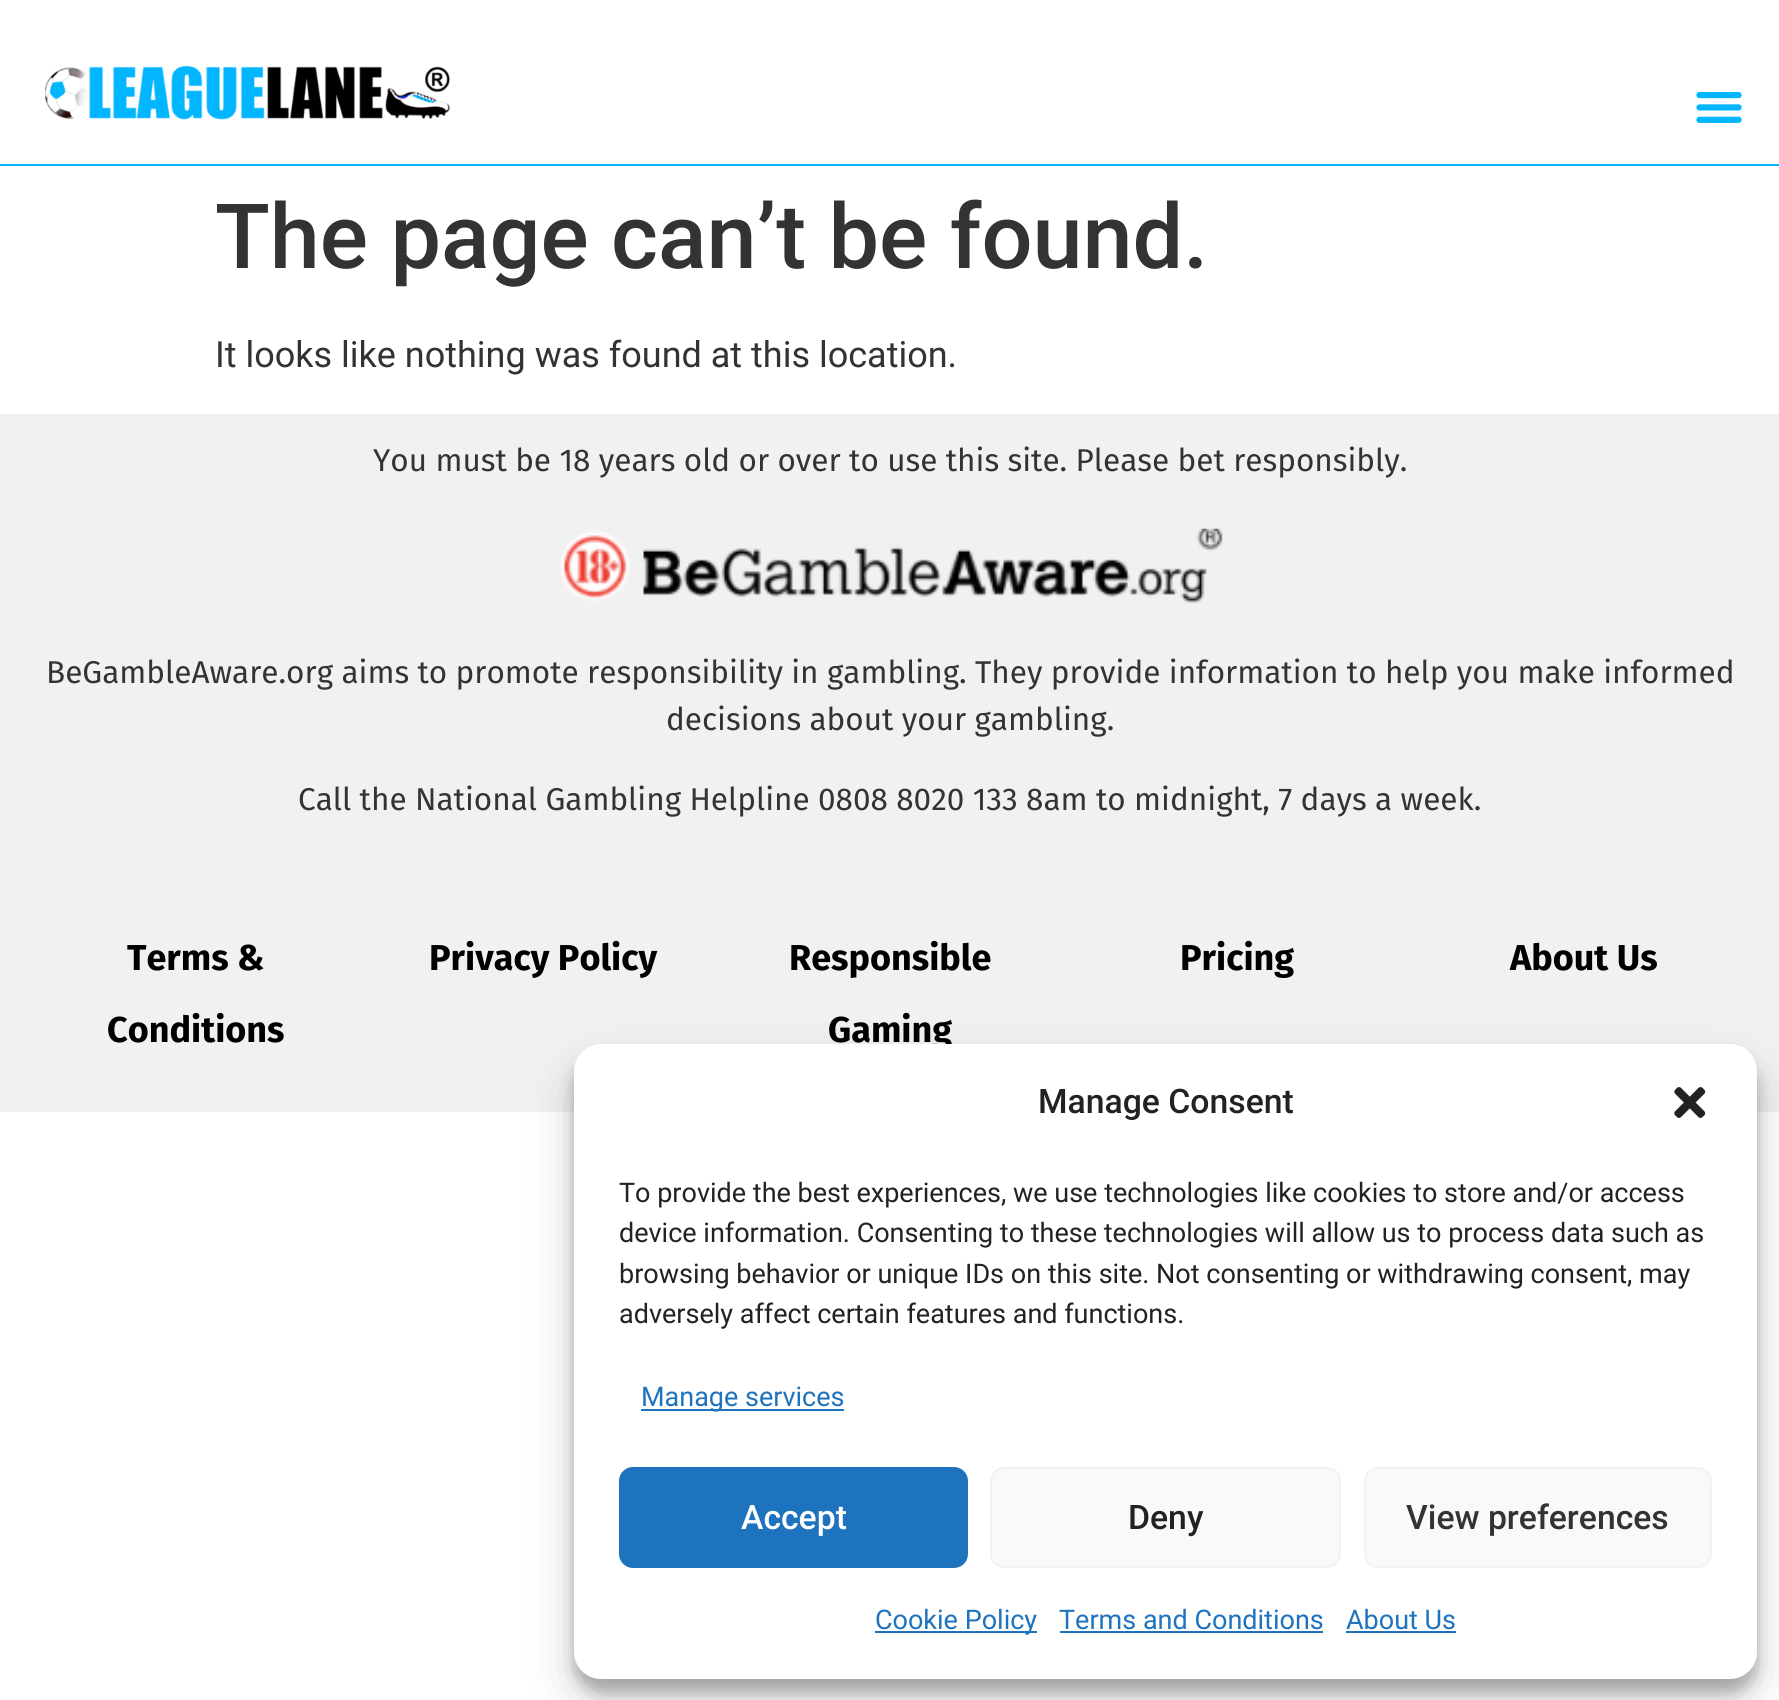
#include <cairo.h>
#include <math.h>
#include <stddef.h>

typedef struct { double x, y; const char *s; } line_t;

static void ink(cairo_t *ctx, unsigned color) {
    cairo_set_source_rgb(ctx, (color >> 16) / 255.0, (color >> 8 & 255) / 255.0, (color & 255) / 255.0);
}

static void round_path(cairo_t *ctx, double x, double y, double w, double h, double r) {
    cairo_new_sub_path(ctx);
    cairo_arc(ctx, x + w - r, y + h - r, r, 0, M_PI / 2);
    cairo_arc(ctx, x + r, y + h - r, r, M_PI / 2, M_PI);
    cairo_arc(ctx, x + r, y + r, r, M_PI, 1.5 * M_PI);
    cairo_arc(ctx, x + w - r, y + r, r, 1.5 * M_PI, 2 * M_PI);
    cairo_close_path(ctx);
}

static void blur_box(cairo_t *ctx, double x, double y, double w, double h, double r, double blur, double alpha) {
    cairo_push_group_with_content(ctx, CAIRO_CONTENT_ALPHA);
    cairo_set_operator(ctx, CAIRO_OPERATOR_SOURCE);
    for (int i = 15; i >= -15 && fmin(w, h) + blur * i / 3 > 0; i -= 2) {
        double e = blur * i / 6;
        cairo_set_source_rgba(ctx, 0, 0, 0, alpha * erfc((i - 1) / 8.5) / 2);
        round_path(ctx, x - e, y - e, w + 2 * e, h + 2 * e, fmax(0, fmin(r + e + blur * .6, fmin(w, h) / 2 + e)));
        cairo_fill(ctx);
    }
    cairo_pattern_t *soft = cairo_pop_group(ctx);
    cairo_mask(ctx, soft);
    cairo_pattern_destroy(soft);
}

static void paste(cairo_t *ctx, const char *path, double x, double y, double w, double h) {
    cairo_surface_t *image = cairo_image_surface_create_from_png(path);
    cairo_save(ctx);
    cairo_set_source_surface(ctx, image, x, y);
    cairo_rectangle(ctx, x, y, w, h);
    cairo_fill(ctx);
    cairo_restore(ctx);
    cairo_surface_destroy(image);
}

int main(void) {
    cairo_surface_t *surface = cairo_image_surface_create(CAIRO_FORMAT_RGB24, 1779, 1700);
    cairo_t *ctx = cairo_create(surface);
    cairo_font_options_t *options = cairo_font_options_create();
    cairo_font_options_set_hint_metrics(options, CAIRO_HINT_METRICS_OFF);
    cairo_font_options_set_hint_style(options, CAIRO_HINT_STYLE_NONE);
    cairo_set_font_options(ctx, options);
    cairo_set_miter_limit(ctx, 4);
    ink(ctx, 0xFFFFFF);
    cairo_paint(ctx);
    ink(ctx, 0x01B5FF);
    cairo_rectangle(ctx, 0, 164, 1779, 2);
    cairo_fill(ctx);
    paste(ctx, "media/1.png", 45, 65, 405, 55);
    paste(ctx, "media/2.png", 1696, 92, 46, 31);
    cairo_select_font_face(ctx, "Roboto Medium", CAIRO_FONT_SLANT_NORMAL, CAIRO_FONT_WEIGHT_NORMAL);
    cairo_set_font_size(ctx, 90);
    ink(ctx, 0x333333);
    cairo_move_to(ctx, 215, 268);
    cairo_show_text(ctx, "The page can’t be found.");
    cairo_select_font_face(ctx, "Roboto", CAIRO_FONT_SLANT_NORMAL, CAIRO_FONT_WEIGHT_NORMAL);
    cairo_set_font_size(ctx, 36);
    cairo_move_to(ctx, 215, 367);
    cairo_show_text(ctx, "It looks like nothing was found at this location.");
    ink(ctx, 0xF1F1F1);
    cairo_rectangle(ctx, 0, 414, 1779, 698);
    cairo_fill(ctx);
    cairo_select_font_face(ctx, "Fira Sans", CAIRO_FONT_SLANT_NORMAL, CAIRO_FONT_WEIGHT_NORMAL);
    cairo_set_font_size(ctx, 31.5);
    ink(ctx, 0x333333);
    cairo_move_to(ctx, 373, 471);
    cairo_show_text(ctx, "You must be 18 years old or over to use this site. Please bet responsibly.");
    paste(ctx, "media/3.png", 560, 528, 663, 75);
    {
        static const line_t items[] = {
            {46, 683, "BeGambleAware.org aims to promote responsibility in gambling. They provide information to help you make informed"},
            {666, 730, "decisions about your gambling."},
            {298, 810, "Call the National Gambling Helpline 0808 8020 133 8am to midnight, 7 days a week."},
        };
        for (size_t i = 0; i < sizeof items / sizeof *items; i++) {
            cairo_move_to(ctx, items[i].x, items[i].y);
            cairo_show_text(ctx, items[i].s);
        }
    }
    cairo_select_font_face(ctx, "Fira Sans", CAIRO_FONT_SLANT_NORMAL, CAIRO_FONT_WEIGHT_BOLD);
    cairo_set_font_size(ctx, 36);
    ink(ctx, 0x000000);
    {
        static const line_t items[] = {
            {127, 970, "Terms &"},
            {107, 1042, "Conditions"},
            {429, 970, "Privacy Policy"},
            {789, 970, "Responsible"},
            {828, 1042, "Gaming"},
            {1180, 970, "Pricing"},
            {1510, 970, "About Us"},
        };
        for (size_t i = 0; i < sizeof items / sizeof *items; i++) {
            cairo_move_to(ctx, items[i].x, items[i].y);
            cairo_show_text(ctx, items[i].s);
        }
    }
    ink(ctx, 0x000000);
    blur_box(ctx, 574, 1058, 1183, 634, 27, 7, 0.23);
    blur_box(ctx, 574, 1067, 1183, 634, 27, 22.5, 0.19);
    ink(ctx, 0xFFFFFF);
    round_path(ctx, 574, 1044, 1183, 635, 27);
    cairo_fill(ctx);
    cairo_select_font_face(ctx, "Roboto Medium", CAIRO_FONT_SLANT_NORMAL, CAIRO_FONT_WEIGHT_NORMAL);
    cairo_set_font_size(ctx, 33.75);
    ink(ctx, 0x222222);
    cairo_move_to(ctx, 1038, 1113);
    cairo_show_text(ctx, "Manage Consent");
    paste(ctx, "media/4.png", 1674, 1087, 32, 31);
    cairo_select_font_face(ctx, "Roboto", CAIRO_FONT_SLANT_NORMAL, CAIRO_FONT_WEIGHT_NORMAL);
    cairo_set_font_size(ctx, 27);
    {
        static const line_t items[] = {
            {619, 1202, "To provide the best experiences, we use technologies like cookies to store and/or access"},
            {619, 1242, "device information. Consenting to these technologies will allow us to process data such as"},
            {619, 1283, "browsing behavior or unique IDs on this site. Not consenting or withdrawing consent, may"},
            {619, 1323, "adversely affect certain features and functions."},
        };
        for (size_t i = 0; i < sizeof items / sizeof *items; i++) {
            cairo_move_to(ctx, items[i].x, items[i].y);
            cairo_show_text(ctx, items[i].s);
        }
    }
    ink(ctx, 0x1E73BE);
    cairo_rectangle(ctx, 641, 1409, 203, 2);
    cairo_fill(ctx);
    cairo_move_to(ctx, 641, 1406);
    cairo_show_text(ctx, "Manage services");
    round_path(ctx, 620, 1468, 347, 99, 13);
    cairo_fill_preserve(ctx);
    cairo_stroke(ctx);
    cairo_select_font_face(ctx, "Roboto Medium", CAIRO_FONT_SLANT_NORMAL, CAIRO_FONT_WEIGHT_NORMAL);
    cairo_set_font_size(ctx, 33.75);
    ink(ctx, 0xFFFFFF);
    cairo_move_to(ctx, 741, 1529);
    cairo_show_text(ctx, "Accept");
    ink(ctx, 0xF9F9F9);
    round_path(ctx, 991, 1468, 349, 99, 13);
    cairo_fill_preserve(ctx);
    ink(ctx, 0xF2F2F2);
    cairo_stroke(ctx);
    ink(ctx, 0x222222);
    cairo_move_to(ctx, 1128, 1529);
    cairo_show_text(ctx, "Deny");
    ink(ctx, 0xF9F9F9);
    round_path(ctx, 1365, 1468, 346, 99, 13);
    cairo_fill_preserve(ctx);
    ink(ctx, 0xF2F2F2);
    cairo_stroke(ctx);
    ink(ctx, 0x333333);
    cairo_move_to(ctx, 1406, 1529);
    cairo_show_text(ctx, "View preferences");
    ink(ctx, 0x1E73BE);
    cairo_rectangle(ctx, 875, 1631, 162, 2);
    cairo_fill(ctx);
    cairo_select_font_face(ctx, "Roboto", CAIRO_FONT_SLANT_NORMAL, CAIRO_FONT_WEIGHT_NORMAL);
    cairo_set_font_size(ctx, 27);
    cairo_move_to(ctx, 875, 1629);
    cairo_show_text(ctx, "Cookie Policy");
    cairo_move_to(ctx, 1059, 1629);
    cairo_show_text(ctx, "Terms and Conditions");
    cairo_rectangle(ctx, 1060, 1631, 263, 2);
    cairo_fill(ctx);
    cairo_move_to(ctx, 1346, 1629);
    cairo_show_text(ctx, "About Us");
    cairo_rectangle(ctx, 1346, 1631, 110, 2);
    cairo_fill(ctx);
    cairo_surface_write_to_png(surface, "image.png");
    cairo_font_options_destroy(options);
    cairo_destroy(ctx);
    cairo_surface_destroy(surface);
    return 0;
}
